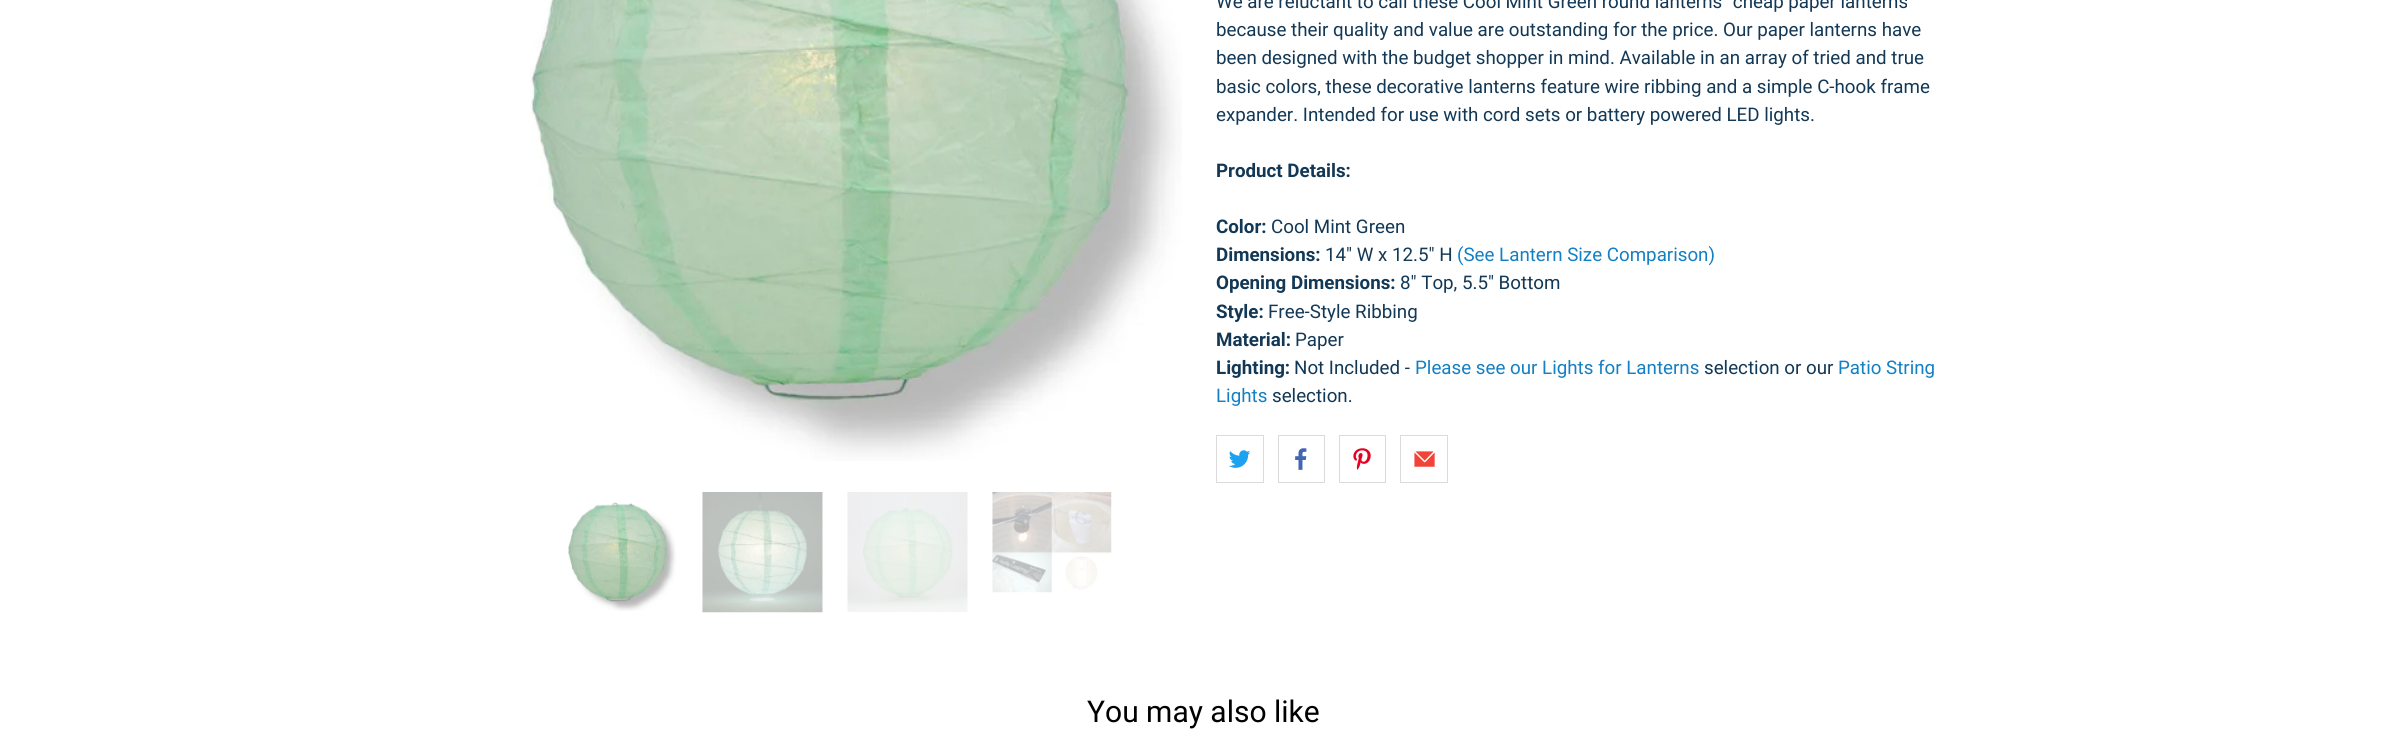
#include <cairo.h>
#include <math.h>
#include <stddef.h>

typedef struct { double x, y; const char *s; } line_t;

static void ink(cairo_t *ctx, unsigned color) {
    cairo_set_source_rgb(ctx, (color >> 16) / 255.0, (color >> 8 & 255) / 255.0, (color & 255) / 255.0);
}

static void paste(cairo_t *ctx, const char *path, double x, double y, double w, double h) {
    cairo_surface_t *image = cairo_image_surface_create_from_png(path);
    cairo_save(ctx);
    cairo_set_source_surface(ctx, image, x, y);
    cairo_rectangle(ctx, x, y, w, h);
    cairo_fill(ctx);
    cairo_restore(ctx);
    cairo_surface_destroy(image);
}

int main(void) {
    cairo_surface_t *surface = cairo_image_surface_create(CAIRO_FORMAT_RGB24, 2406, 750);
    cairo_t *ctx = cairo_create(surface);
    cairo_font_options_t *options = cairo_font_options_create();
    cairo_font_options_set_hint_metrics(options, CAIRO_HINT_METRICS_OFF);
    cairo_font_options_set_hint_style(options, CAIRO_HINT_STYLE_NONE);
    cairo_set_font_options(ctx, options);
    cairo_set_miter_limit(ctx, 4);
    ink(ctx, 0xFFFFFF);
    cairo_paint(ctx);
    paste(ctx, "media/1.png", 530, 0, 652, 461);
    paste(ctx, "media/2.png", 568, 502, 108, 109);
    paste(ctx, "media/3.png", 702, 492, 121, 121);
    paste(ctx, "media/4.png", 847, 492, 121, 120);
    paste(ctx, "media/5.png", 992, 492, 120, 101);
    cairo_select_font_face(ctx, "Roboto", CAIRO_FONT_SLANT_NORMAL, CAIRO_FONT_WEIGHT_NORMAL);
    cairo_set_font_size(ctx, 18.75);
    ink(ctx, 0x123856);
    {
        static const line_t items[] = {
            {1216, 8, "We are reluctant to call these Cool Mint Green round lanterns \"cheap paper lanterns"},
            {1216, 36, "because their quality and value are outstanding for the price. Our paper lanterns have"},
            {1216, 64, "been designed with the budget shopper in mind. Available in an array of tried and true"},
            {1216, 93, "basic colors, these decorative lanterns feature wire ribbing and a simple C-hook frame"},
            {1216, 121, "expander. Intended for use with cord sets or battery powered LED lights."},
        };
        for (size_t i = 0; i < sizeof items / sizeof *items; i++) {
            cairo_move_to(ctx, items[i].x, items[i].y);
            cairo_show_text(ctx, items[i].s);
        }
    }
    cairo_select_font_face(ctx, "Roboto", CAIRO_FONT_SLANT_NORMAL, CAIRO_FONT_WEIGHT_BOLD);
    cairo_move_to(ctx, 1216, 177);
    cairo_show_text(ctx, "Product Details:");
    cairo_move_to(ctx, 1216, 233);
    cairo_show_text(ctx, "Color:");
    cairo_select_font_face(ctx, "Roboto", CAIRO_FONT_SLANT_NORMAL, CAIRO_FONT_WEIGHT_NORMAL);
    cairo_move_to(ctx, 1271, 233);
    cairo_show_text(ctx, "Cool Mint Green");
    cairo_select_font_face(ctx, "Roboto", CAIRO_FONT_SLANT_NORMAL, CAIRO_FONT_WEIGHT_BOLD);
    cairo_move_to(ctx, 1216, 261);
    cairo_show_text(ctx, "Dimensions:");
    cairo_select_font_face(ctx, "Roboto", CAIRO_FONT_SLANT_NORMAL, CAIRO_FONT_WEIGHT_NORMAL);
    cairo_move_to(ctx, 1325, 261);
    cairo_show_text(ctx, "14\" W x 12.5\" H");
    ink(ctx, 0x147FC3);
    cairo_move_to(ctx, 1457, 261);
    cairo_show_text(ctx, "(See Lantern Size Comparison)");
    cairo_select_font_face(ctx, "Roboto", CAIRO_FONT_SLANT_NORMAL, CAIRO_FONT_WEIGHT_BOLD);
    ink(ctx, 0x123856);
    cairo_move_to(ctx, 1216, 289);
    cairo_show_text(ctx, "Opening Dimensions:");
    cairo_select_font_face(ctx, "Roboto", CAIRO_FONT_SLANT_NORMAL, CAIRO_FONT_WEIGHT_NORMAL);
    cairo_move_to(ctx, 1400, 289);
    cairo_show_text(ctx, "8\" Top, 5.5\" Bottom");
    cairo_select_font_face(ctx, "Roboto", CAIRO_FONT_SLANT_NORMAL, CAIRO_FONT_WEIGHT_BOLD);
    cairo_move_to(ctx, 1216, 318);
    cairo_show_text(ctx, "Style:");
    cairo_select_font_face(ctx, "Roboto", CAIRO_FONT_SLANT_NORMAL, CAIRO_FONT_WEIGHT_NORMAL);
    cairo_move_to(ctx, 1268, 318);
    cairo_show_text(ctx, "Free-Style Ribbing");
    cairo_select_font_face(ctx, "Roboto", CAIRO_FONT_SLANT_NORMAL, CAIRO_FONT_WEIGHT_BOLD);
    cairo_move_to(ctx, 1216, 346);
    cairo_show_text(ctx, "Material:");
    cairo_select_font_face(ctx, "Roboto", CAIRO_FONT_SLANT_NORMAL, CAIRO_FONT_WEIGHT_NORMAL);
    cairo_move_to(ctx, 1295, 346);
    cairo_show_text(ctx, "Paper");
    cairo_select_font_face(ctx, "Roboto", CAIRO_FONT_SLANT_NORMAL, CAIRO_FONT_WEIGHT_BOLD);
    cairo_move_to(ctx, 1216, 374);
    cairo_show_text(ctx, "Lighting:");
    cairo_select_font_face(ctx, "Roboto", CAIRO_FONT_SLANT_NORMAL, CAIRO_FONT_WEIGHT_NORMAL);
    cairo_move_to(ctx, 1294, 374);
    cairo_show_text(ctx, "Not Included -");
    ink(ctx, 0x147FC3);
    cairo_move_to(ctx, 1415, 374);
    cairo_show_text(ctx, "Please see our Lights for Lanterns");
    ink(ctx, 0x123856);
    cairo_move_to(ctx, 1704, 374);
    cairo_show_text(ctx, "selection or our");
    ink(ctx, 0x147FC3);
    cairo_move_to(ctx, 1838, 374);
    cairo_show_text(ctx, "Patio String");
    cairo_move_to(ctx, 1216, 402);
    cairo_show_text(ctx, "Lights");
    ink(ctx, 0x123856);
    cairo_move_to(ctx, 1272, 402);
    cairo_show_text(ctx, "selection.");
    cairo_rectangle(ctx, 1216.5, 435.5, 47, 47);
    ink(ctx, 0xDBDBDB);
    cairo_set_line_width(ctx, 1);
    cairo_stroke(ctx);
    paste(ctx, "media/6.png", 1228, 450, 23, 18);
    cairo_rectangle(ctx, 1278.5, 435.5, 46, 47);
    cairo_stroke(ctx);
    paste(ctx, "media/7.png", 1295, 448, 12, 22);
    cairo_rectangle(ctx, 1339.5, 435.5, 46, 47);
    cairo_stroke(ctx);
    paste(ctx, "media/8.png", 1353, 448, 18, 22);
    cairo_rectangle(ctx, 1400.5, 435.5, 47, 47);
    cairo_stroke(ctx);
    paste(ctx, "media/9.png", 1414, 451, 21, 16);
    cairo_set_font_size(ctx, 30);
    ink(ctx, 0x000000);
    cairo_move_to(ctx, 1087, 722);
    cairo_show_text(ctx, "You may also like");
    cairo_surface_write_to_png(surface, "image.png");
    cairo_font_options_destroy(options);
    cairo_destroy(ctx);
    cairo_surface_destroy(surface);
    return 0;
}
